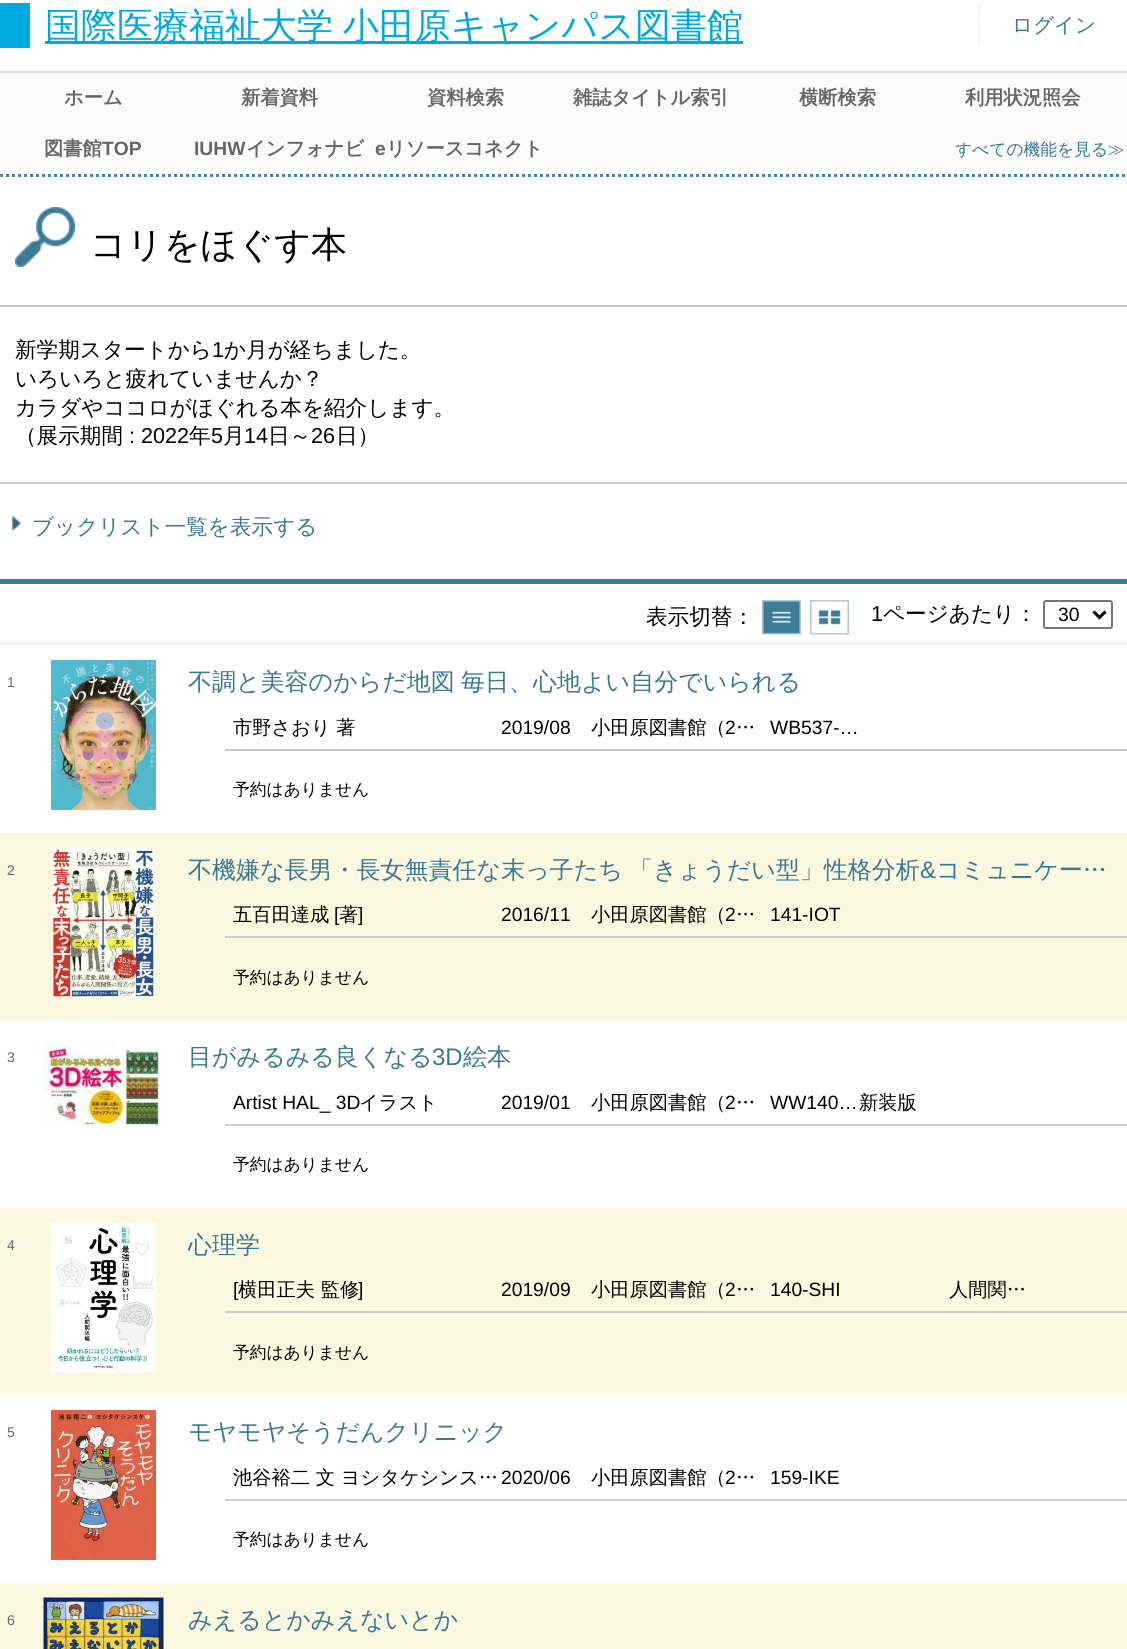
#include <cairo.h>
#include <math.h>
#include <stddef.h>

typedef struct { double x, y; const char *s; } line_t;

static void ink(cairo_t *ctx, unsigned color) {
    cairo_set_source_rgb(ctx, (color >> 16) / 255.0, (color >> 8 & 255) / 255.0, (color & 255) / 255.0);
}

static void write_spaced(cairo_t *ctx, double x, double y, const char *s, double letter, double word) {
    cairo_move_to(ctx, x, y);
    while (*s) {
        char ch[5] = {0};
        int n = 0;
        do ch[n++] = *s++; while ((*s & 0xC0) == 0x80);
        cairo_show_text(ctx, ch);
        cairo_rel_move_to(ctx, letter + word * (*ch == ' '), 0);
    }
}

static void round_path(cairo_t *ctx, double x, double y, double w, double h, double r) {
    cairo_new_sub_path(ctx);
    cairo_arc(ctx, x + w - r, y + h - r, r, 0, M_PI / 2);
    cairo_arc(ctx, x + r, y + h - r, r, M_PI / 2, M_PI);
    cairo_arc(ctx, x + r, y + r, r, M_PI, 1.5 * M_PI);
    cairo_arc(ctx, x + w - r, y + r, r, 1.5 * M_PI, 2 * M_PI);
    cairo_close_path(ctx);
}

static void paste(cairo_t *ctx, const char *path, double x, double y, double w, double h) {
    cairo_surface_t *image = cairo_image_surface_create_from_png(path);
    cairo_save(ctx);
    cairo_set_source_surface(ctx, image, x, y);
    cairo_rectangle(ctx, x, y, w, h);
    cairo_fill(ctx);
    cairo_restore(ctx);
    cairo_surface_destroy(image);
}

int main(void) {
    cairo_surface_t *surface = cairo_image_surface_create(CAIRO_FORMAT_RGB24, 1127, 1649);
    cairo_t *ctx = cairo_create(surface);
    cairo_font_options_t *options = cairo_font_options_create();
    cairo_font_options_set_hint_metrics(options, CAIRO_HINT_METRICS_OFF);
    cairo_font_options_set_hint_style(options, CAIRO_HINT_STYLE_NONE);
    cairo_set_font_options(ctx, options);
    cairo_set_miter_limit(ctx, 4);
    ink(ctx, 0xFFFFFF);
    cairo_paint(ctx);
    ink(ctx, 0x00AAE0);
    cairo_rectangle(ctx, 0, 3, 30, 45);
    cairo_fill(ctx);
    cairo_rectangle(ctx, 45, 41, 698, 3);
    cairo_fill(ctx);
    cairo_select_font_face(ctx, "WenQuanYi Zen Hei Medium", CAIRO_FONT_SLANT_NORMAL, CAIRO_FONT_WEIGHT_NORMAL);
    cairo_set_font_size(ctx, 36);
    write_spaced(ctx, 45, 38, "国際医療福祉大学 小田原キャンパス図書館", 0, -1);
    cairo_new_path(ctx);
    cairo_move_to(ctx, 979, 6);
    cairo_line_to(ctx, 979, 45);
    ink(ctx, 0xDDDDDD);
    cairo_set_line_width(ctx, 1.5);
    cairo_set_dash(ctx, (double[]){1.5, 1.5}, 2, 0);
    cairo_stroke(ctx);
    cairo_set_font_size(ctx, 20.5);
    ink(ctx, 0x387895);
    cairo_move_to(ctx, 1012, 32);
    cairo_show_text(ctx, "ログイン");
    ink(ctx, 0xFBFBFB);
    cairo_rectangle(ctx, 0, 73, 1127, 101);
    cairo_fill(ctx);
    ink(ctx, 0xDDDDDD);
    cairo_rectangle(ctx, 0, 71, 1127, 2);
    cairo_fill(ctx);
    cairo_select_font_face(ctx, "WenQuanYi Zen Hei", CAIRO_FONT_SLANT_NORMAL, CAIRO_FONT_WEIGHT_BOLD);
    cairo_set_font_size(ctx, 19.25);
    ink(ctx, 0x666666);
    {
        static const line_t items[] = {
            {64, 104, "ホーム"},
            {241, 104, "新着資料"},
            {427, 104, "資料検索"},
            {573, 104, "雑誌タイトル索引"},
            {799, 104, "横断検索"},
            {965, 104, "利用状況照会"},
            {44, 155, "図書館"},
        };
        for (size_t i = 0; i < sizeof items / sizeof *items; i++) {
            cairo_move_to(ctx, items[i].x, items[i].y);
            cairo_show_text(ctx, items[i].s);
        }
    }
    cairo_select_font_face(ctx, "Liberation Sans", CAIRO_FONT_SLANT_NORMAL, CAIRO_FONT_WEIGHT_BOLD);
    cairo_move_to(ctx, 102, 155);
    cairo_show_text(ctx, "TOP");
    cairo_move_to(ctx, 194, 155);
    cairo_show_text(ctx, "IUHW");
    cairo_select_font_face(ctx, "WenQuanYi Zen Hei", CAIRO_FONT_SLANT_NORMAL, CAIRO_FONT_WEIGHT_BOLD);
    cairo_move_to(ctx, 246, 155);
    cairo_show_text(ctx, "インフォナビ");
    cairo_select_font_face(ctx, "Liberation Sans", CAIRO_FONT_SLANT_NORMAL, CAIRO_FONT_WEIGHT_BOLD);
    cairo_move_to(ctx, 375, 155);
    cairo_show_text(ctx, "e");
    cairo_select_font_face(ctx, "WenQuanYi Zen Hei", CAIRO_FONT_SLANT_NORMAL, CAIRO_FONT_WEIGHT_BOLD);
    cairo_move_to(ctx, 386, 155);
    cairo_show_text(ctx, "リソースコネクト");
    cairo_select_font_face(ctx, "WenQuanYi Zen Hei Medium", CAIRO_FONT_SLANT_NORMAL, CAIRO_FONT_WEIGHT_NORMAL);
    cairo_set_font_size(ctx, 16.75);
    ink(ctx, 0x387895);
    cairo_move_to(ctx, 955, 155);
    cairo_show_text(ctx, "すべての機能を見る≫");
    cairo_new_path(ctx);
    cairo_move_to(ctx, 0, 175.5);
    cairo_line_to(ctx, 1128, 175.5);
    ink(ctx, 0x4583A1);
    cairo_set_line_width(ctx, 3);
    cairo_set_dash(ctx, (double[]){3, 3}, 2, 0);
    cairo_stroke(ctx);
    ink(ctx, 0xEEEEEE);
    cairo_new_path(ctx);
    cairo_move_to(ctx, 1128, 174);
    cairo_line_to(ctx, 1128, 177);
    cairo_line_to(ctx, 1126.5, 177);
    cairo_close_path(ctx);
    cairo_fill(ctx);
    ink(ctx, 0x9F9F9F);
    cairo_new_path(ctx);
    cairo_move_to(ctx, 0, 177);
    cairo_line_to(ctx, 0, 174);
    cairo_line_to(ctx, 1.5, 177);
    cairo_close_path(ctx);
    cairo_fill(ctx);
    paste(ctx, "media/1.png", 15, 207, 60, 60);
    cairo_set_font_size(ctx, 36);
    ink(ctx, 0x000000);
    cairo_move_to(ctx, 90, 257);
    cairo_show_text(ctx, "コリをほぐす本");
    ink(ctx, 0xCCCCCC);
    cairo_rectangle(ctx, 0, 305, 1127, 2);
    cairo_fill(ctx);
    cairo_rectangle(ctx, 0, 482, 1127, 2);
    cairo_fill(ctx);
    cairo_set_font_size(ctx, 21.6);
    ink(ctx, 0x000000);
    cairo_move_to(ctx, 15, 357);
    cairo_show_text(ctx, "新学期スタートから");
    cairo_select_font_face(ctx, "Liberation Sans", CAIRO_FONT_SLANT_NORMAL, CAIRO_FONT_WEIGHT_NORMAL);
    cairo_move_to(ctx, 212, 357);
    cairo_show_text(ctx, "1");
    cairo_select_font_face(ctx, "WenQuanYi Zen Hei Medium", CAIRO_FONT_SLANT_NORMAL, CAIRO_FONT_WEIGHT_NORMAL);
    {
        static const line_t items[] = {
            {224, 357, "か月が経ちました。"},
            {15, 386, "いろいろと疲れていませんか？"},
            {15, 415, "カラダやココロがほぐれる本を紹介します。"},
            {15, 443, "（展示期間"},
        };
        for (size_t i = 0; i < sizeof items / sizeof *items; i++) {
            cairo_move_to(ctx, items[i].x, items[i].y);
            cairo_show_text(ctx, items[i].s);
        }
    }
    cairo_select_font_face(ctx, "Liberation Sans", CAIRO_FONT_SLANT_NORMAL, CAIRO_FONT_WEIGHT_NORMAL);
    cairo_move_to(ctx, 129, 443);
    cairo_show_text(ctx, ": 2022");
    cairo_select_font_face(ctx, "WenQuanYi Zen Hei Medium", CAIRO_FONT_SLANT_NORMAL, CAIRO_FONT_WEIGHT_NORMAL);
    cairo_move_to(ctx, 189, 443);
    cairo_show_text(ctx, "年");
    cairo_select_font_face(ctx, "Liberation Sans", CAIRO_FONT_SLANT_NORMAL, CAIRO_FONT_WEIGHT_NORMAL);
    cairo_move_to(ctx, 211, 443);
    cairo_show_text(ctx, "5");
    cairo_select_font_face(ctx, "WenQuanYi Zen Hei Medium", CAIRO_FONT_SLANT_NORMAL, CAIRO_FONT_WEIGHT_NORMAL);
    cairo_move_to(ctx, 223, 443);
    cairo_show_text(ctx, "月");
    cairo_select_font_face(ctx, "Liberation Sans", CAIRO_FONT_SLANT_NORMAL, CAIRO_FONT_WEIGHT_NORMAL);
    cairo_move_to(ctx, 244, 443);
    cairo_show_text(ctx, "14");
    cairo_select_font_face(ctx, "WenQuanYi Zen Hei Medium", CAIRO_FONT_SLANT_NORMAL, CAIRO_FONT_WEIGHT_NORMAL);
    cairo_move_to(ctx, 268, 443);
    cairo_show_text(ctx, "日～");
    cairo_select_font_face(ctx, "Liberation Sans", CAIRO_FONT_SLANT_NORMAL, CAIRO_FONT_WEIGHT_NORMAL);
    cairo_move_to(ctx, 311, 443);
    cairo_show_text(ctx, "26");
    cairo_select_font_face(ctx, "WenQuanYi Zen Hei Medium", CAIRO_FONT_SLANT_NORMAL, CAIRO_FONT_WEIGHT_NORMAL);
    cairo_move_to(ctx, 336, 443);
    cairo_show_text(ctx, "日）");
    paste(ctx, "media/2.png", 11, 515, 11, 17);
    ink(ctx, 0x387895);
    cairo_move_to(ctx, 32, 534);
    cairo_show_text(ctx, "ブックリスト一覧を表示する");
    ink(ctx, 0x3C7B97);
    cairo_rectangle(ctx, 0, 579, 1127, 5);
    cairo_fill(ctx);
    ink(ctx, 0x000000);
    cairo_move_to(ctx, 646, 624);
    cairo_show_text(ctx, "表示切替：");
    paste(ctx, "media/3.png", 762, 600, 39, 35);
    paste(ctx, "media/4.png", 810, 600, 39, 35);
    cairo_select_font_face(ctx, "Liberation Sans", CAIRO_FONT_SLANT_NORMAL, CAIRO_FONT_WEIGHT_NORMAL);
    cairo_move_to(ctx, 871, 621);
    cairo_show_text(ctx, "1");
    cairo_select_font_face(ctx, "WenQuanYi Zen Hei Medium", CAIRO_FONT_SLANT_NORMAL, CAIRO_FONT_WEIGHT_NORMAL);
    cairo_move_to(ctx, 883, 621);
    cairo_show_text(ctx, "ページあたり：");
    round_path(ctx, 1044, 601, 68, 27, 2);
    ink(ctx, 0x767676);
    cairo_set_line_width(ctx, 2);
    cairo_set_dash(ctx, NULL, 0, 0);
    cairo_stroke(ctx);
    cairo_new_path(ctx);
    cairo_move_to(ctx, 1093.5, 611.5);
    cairo_line_to(ctx, 1099.5, 617.5);
    cairo_line_to(ctx, 1105.5, 611.5);
    ink(ctx, 0x000000);
    cairo_set_line_width(ctx, 3);
    cairo_stroke(ctx);
    cairo_select_font_face(ctx, "Liberation Sans", CAIRO_FONT_SLANT_NORMAL, CAIRO_FONT_WEIGHT_NORMAL);
    cairo_set_font_size(ctx, 19.25);
    cairo_move_to(ctx, 1058, 621);
    cairo_show_text(ctx, "30");
    ink(ctx, 0xEEEEFF);
    cairo_rectangle(ctx, 0, 642, 1127, 3);
    cairo_fill(ctx);
    cairo_set_font_size(ctx, 14);
    ink(ctx, 0x666666);
    cairo_move_to(ctx, 7, 687);
    cairo_show_text(ctx, "1");
    paste(ctx, "media/5.png", 51, 660, 105, 150);
    cairo_select_font_face(ctx, "WenQuanYi Zen Hei Medium", CAIRO_FONT_SLANT_NORMAL, CAIRO_FONT_WEIGHT_NORMAL);
    cairo_set_font_size(ctx, 24);
    ink(ctx, 0x387895);
    write_spaced(ctx, 188, 690, "不調と美容のからだ地図 毎日、心地よい自分でいられる", 0, -1);
    cairo_set_font_size(ctx, 19.25);
    ink(ctx, 0x000000);
    cairo_move_to(ctx, 233, 734);
    cairo_show_text(ctx, "市野さおり 著");
    cairo_select_font_face(ctx, "Liberation Sans", CAIRO_FONT_SLANT_NORMAL, CAIRO_FONT_WEIGHT_NORMAL);
    cairo_move_to(ctx, 501, 734);
    cairo_show_text(ctx, "2019/08");
    cairo_select_font_face(ctx, "WenQuanYi Zen Hei Medium", CAIRO_FONT_SLANT_NORMAL, CAIRO_FONT_WEIGHT_NORMAL);
    cairo_move_to(ctx, 591, 734);
    cairo_show_text(ctx, "小田原図書館（");
    cairo_select_font_face(ctx, "Liberation Sans", CAIRO_FONT_SLANT_NORMAL, CAIRO_FONT_WEIGHT_NORMAL);
    cairo_move_to(ctx, 725, 734);
    cairo_show_text(ctx, "2");
    cairo_select_font_face(ctx, "WenQuanYi Zen Hei Medium", CAIRO_FONT_SLANT_NORMAL, CAIRO_FONT_WEIGHT_NORMAL);
    cairo_move_to(ctx, 736, 734);
    cairo_show_text(ctx, "…");
    cairo_select_font_face(ctx, "Liberation Sans", CAIRO_FONT_SLANT_NORMAL, CAIRO_FONT_WEIGHT_NORMAL);
    cairo_move_to(ctx, 770, 734);
    cairo_show_text(ctx, "WB537-…");
    ink(ctx, 0xCCCCCC);
    cairo_rectangle(ctx, 225, 749, 902, 2);
    cairo_fill(ctx);
    cairo_select_font_face(ctx, "WenQuanYi Zen Hei Medium", CAIRO_FONT_SLANT_NORMAL, CAIRO_FONT_WEIGHT_NORMAL);
    cairo_set_font_size(ctx, 16.75);
    ink(ctx, 0x000000);
    cairo_move_to(ctx, 233, 795);
    cairo_show_text(ctx, "予約はありません");
    ink(ctx, 0xFAF8DE);
    cairo_rectangle(ctx, 0, 833, 1127, 187);
    cairo_fill(ctx);
    cairo_select_font_face(ctx, "Liberation Sans", CAIRO_FONT_SLANT_NORMAL, CAIRO_FONT_WEIGHT_NORMAL);
    cairo_set_font_size(ctx, 14);
    ink(ctx, 0x666666);
    cairo_move_to(ctx, 7, 875);
    cairo_show_text(ctx, "2");
    paste(ctx, "media/6.png", 52, 847, 103, 151);
    cairo_select_font_face(ctx, "WenQuanYi Zen Hei Medium", CAIRO_FONT_SLANT_NORMAL, CAIRO_FONT_WEIGHT_NORMAL);
    cairo_set_font_size(ctx, 24);
    ink(ctx, 0x387895);
    write_spaced(ctx, 188, 878, "不機嫌な長男・長女無責任な末っ子たち 「きょうだい型」性格分析", 0, -1);
    cairo_select_font_face(ctx, "Liberation Sans", CAIRO_FONT_SLANT_NORMAL, CAIRO_FONT_WEIGHT_NORMAL);
    cairo_move_to(ctx, 920, 878);
    cairo_show_text(ctx, "&");
    cairo_select_font_face(ctx, "WenQuanYi Zen Hei Medium", CAIRO_FONT_SLANT_NORMAL, CAIRO_FONT_WEIGHT_NORMAL);
    cairo_move_to(ctx, 936, 878);
    cairo_show_text(ctx, "コミュニケー…");
    cairo_set_font_size(ctx, 19.25);
    ink(ctx, 0x000000);
    cairo_move_to(ctx, 233, 921);
    cairo_show_text(ctx, "五百田達成");
    cairo_select_font_face(ctx, "Liberation Sans", CAIRO_FONT_SLANT_NORMAL, CAIRO_FONT_WEIGHT_NORMAL);
    cairo_move_to(ctx, 334, 921);
    cairo_show_text(ctx, "[");
    cairo_select_font_face(ctx, "WenQuanYi Zen Hei Medium", CAIRO_FONT_SLANT_NORMAL, CAIRO_FONT_WEIGHT_NORMAL);
    cairo_move_to(ctx, 339, 921);
    cairo_show_text(ctx, "著");
    cairo_select_font_face(ctx, "Liberation Sans", CAIRO_FONT_SLANT_NORMAL, CAIRO_FONT_WEIGHT_NORMAL);
    cairo_move_to(ctx, 358, 921);
    cairo_show_text(ctx, "]");
    cairo_move_to(ctx, 501, 921);
    cairo_show_text(ctx, "2016/11");
    cairo_select_font_face(ctx, "WenQuanYi Zen Hei Medium", CAIRO_FONT_SLANT_NORMAL, CAIRO_FONT_WEIGHT_NORMAL);
    cairo_move_to(ctx, 591, 921);
    cairo_show_text(ctx, "小田原図書館（");
    cairo_select_font_face(ctx, "Liberation Sans", CAIRO_FONT_SLANT_NORMAL, CAIRO_FONT_WEIGHT_NORMAL);
    cairo_move_to(ctx, 725, 921);
    cairo_show_text(ctx, "2");
    cairo_select_font_face(ctx, "WenQuanYi Zen Hei Medium", CAIRO_FONT_SLANT_NORMAL, CAIRO_FONT_WEIGHT_NORMAL);
    cairo_move_to(ctx, 736, 921);
    cairo_show_text(ctx, "…");
    cairo_select_font_face(ctx, "Liberation Sans", CAIRO_FONT_SLANT_NORMAL, CAIRO_FONT_WEIGHT_NORMAL);
    cairo_move_to(ctx, 770, 921);
    cairo_show_text(ctx, "141-IOT");
    ink(ctx, 0xCCCCCC);
    cairo_rectangle(ctx, 225, 936, 902, 2);
    cairo_fill(ctx);
    cairo_select_font_face(ctx, "WenQuanYi Zen Hei Medium", CAIRO_FONT_SLANT_NORMAL, CAIRO_FONT_WEIGHT_NORMAL);
    cairo_set_font_size(ctx, 16.75);
    ink(ctx, 0x000000);
    cairo_move_to(ctx, 233, 983);
    cairo_show_text(ctx, "予約はありません");
    cairo_select_font_face(ctx, "Liberation Sans", CAIRO_FONT_SLANT_NORMAL, CAIRO_FONT_WEIGHT_NORMAL);
    cairo_set_font_size(ctx, 14);
    ink(ctx, 0x666666);
    cairo_move_to(ctx, 7, 1062);
    cairo_show_text(ctx, "3");
    paste(ctx, "media/7.png", 43, 1045, 117, 85);
    cairo_select_font_face(ctx, "WenQuanYi Zen Hei Medium", CAIRO_FONT_SLANT_NORMAL, CAIRO_FONT_WEIGHT_NORMAL);
    cairo_set_font_size(ctx, 24);
    ink(ctx, 0x387895);
    cairo_move_to(ctx, 188, 1065);
    cairo_show_text(ctx, "目がみるみる良くなる");
    cairo_select_font_face(ctx, "Liberation Sans", CAIRO_FONT_SLANT_NORMAL, CAIRO_FONT_WEIGHT_NORMAL);
    cairo_move_to(ctx, 432, 1065);
    cairo_show_text(ctx, "3D");
    cairo_select_font_face(ctx, "WenQuanYi Zen Hei Medium", CAIRO_FONT_SLANT_NORMAL, CAIRO_FONT_WEIGHT_NORMAL);
    cairo_move_to(ctx, 463, 1065);
    cairo_show_text(ctx, "絵本");
    cairo_select_font_face(ctx, "Liberation Sans", CAIRO_FONT_SLANT_NORMAL, CAIRO_FONT_WEIGHT_NORMAL);
    cairo_set_font_size(ctx, 19.25);
    ink(ctx, 0x000000);
    cairo_move_to(ctx, 233, 1109);
    cairo_show_text(ctx, "Artist HAL_ 3D");
    cairo_select_font_face(ctx, "WenQuanYi Zen Hei Medium", CAIRO_FONT_SLANT_NORMAL, CAIRO_FONT_WEIGHT_NORMAL);
    cairo_move_to(ctx, 359, 1109);
    cairo_show_text(ctx, "イラスト");
    cairo_select_font_face(ctx, "Liberation Sans", CAIRO_FONT_SLANT_NORMAL, CAIRO_FONT_WEIGHT_NORMAL);
    cairo_move_to(ctx, 501, 1109);
    cairo_show_text(ctx, "2019/01");
    cairo_select_font_face(ctx, "WenQuanYi Zen Hei Medium", CAIRO_FONT_SLANT_NORMAL, CAIRO_FONT_WEIGHT_NORMAL);
    cairo_move_to(ctx, 591, 1109);
    cairo_show_text(ctx, "小田原図書館（");
    cairo_select_font_face(ctx, "Liberation Sans", CAIRO_FONT_SLANT_NORMAL, CAIRO_FONT_WEIGHT_NORMAL);
    cairo_move_to(ctx, 725, 1109);
    cairo_show_text(ctx, "2");
    cairo_select_font_face(ctx, "WenQuanYi Zen Hei Medium", CAIRO_FONT_SLANT_NORMAL, CAIRO_FONT_WEIGHT_NORMAL);
    cairo_move_to(ctx, 736, 1109);
    cairo_show_text(ctx, "…");
    cairo_select_font_face(ctx, "Liberation Sans", CAIRO_FONT_SLANT_NORMAL, CAIRO_FONT_WEIGHT_NORMAL);
    cairo_move_to(ctx, 770, 1109);
    cairo_show_text(ctx, "WW140…");
    cairo_select_font_face(ctx, "WenQuanYi Zen Hei Medium", CAIRO_FONT_SLANT_NORMAL, CAIRO_FONT_WEIGHT_NORMAL);
    cairo_move_to(ctx, 859, 1109);
    cairo_show_text(ctx, "新装版");
    ink(ctx, 0xCCCCCC);
    cairo_rectangle(ctx, 225, 1124, 902, 2);
    cairo_fill(ctx);
    cairo_set_font_size(ctx, 16.75);
    ink(ctx, 0x000000);
    cairo_move_to(ctx, 233, 1170);
    cairo_show_text(ctx, "予約はありません");
    ink(ctx, 0xFAF8DE);
    cairo_rectangle(ctx, 0, 1208, 1127, 187);
    cairo_fill(ctx);
    cairo_select_font_face(ctx, "Liberation Sans", CAIRO_FONT_SLANT_NORMAL, CAIRO_FONT_WEIGHT_NORMAL);
    cairo_set_font_size(ctx, 14);
    ink(ctx, 0x666666);
    cairo_move_to(ctx, 7, 1250);
    cairo_show_text(ctx, "4");
    paste(ctx, "media/8.png", 51, 1222, 105, 151);
    cairo_save(ctx);
    cairo_rectangle(ctx, 188, 1215, 72, 60);
    cairo_clip(ctx);
    cairo_select_font_face(ctx, "WenQuanYi Zen Hei Medium", CAIRO_FONT_SLANT_NORMAL, CAIRO_FONT_WEIGHT_NORMAL);
    cairo_set_font_size(ctx, 24);
    ink(ctx, 0x387895);
    cairo_move_to(ctx, 188, 1253);
    cairo_show_text(ctx, "心理学");
    cairo_restore(ctx);
    cairo_set_font_size(ctx, 19.25);
    ink(ctx, 0x000000);
    cairo_move_to(ctx, 233, 1296);
    cairo_show_text(ctx, "[");
    cairo_select_font_face(ctx, "WenQuanYi Zen Hei Medium", CAIRO_FONT_SLANT_NORMAL, CAIRO_FONT_WEIGHT_NORMAL);
    cairo_move_to(ctx, 238, 1296);
    cairo_show_text(ctx, "横田正夫 監修");
    cairo_select_font_face(ctx, "Liberation Sans", CAIRO_FONT_SLANT_NORMAL, CAIRO_FONT_WEIGHT_NORMAL);
    cairo_move_to(ctx, 358, 1296);
    cairo_show_text(ctx, "]");
    cairo_move_to(ctx, 501, 1296);
    cairo_show_text(ctx, "2019/09");
    cairo_select_font_face(ctx, "WenQuanYi Zen Hei Medium", CAIRO_FONT_SLANT_NORMAL, CAIRO_FONT_WEIGHT_NORMAL);
    cairo_move_to(ctx, 591, 1296);
    cairo_show_text(ctx, "小田原図書館（");
    cairo_select_font_face(ctx, "Liberation Sans", CAIRO_FONT_SLANT_NORMAL, CAIRO_FONT_WEIGHT_NORMAL);
    cairo_move_to(ctx, 725, 1296);
    cairo_show_text(ctx, "2");
    cairo_select_font_face(ctx, "WenQuanYi Zen Hei Medium", CAIRO_FONT_SLANT_NORMAL, CAIRO_FONT_WEIGHT_NORMAL);
    cairo_move_to(ctx, 736, 1296);
    cairo_show_text(ctx, "…");
    cairo_select_font_face(ctx, "Liberation Sans", CAIRO_FONT_SLANT_NORMAL, CAIRO_FONT_WEIGHT_NORMAL);
    cairo_move_to(ctx, 770, 1296);
    cairo_show_text(ctx, "140-SHI");
    cairo_select_font_face(ctx, "WenQuanYi Zen Hei Medium", CAIRO_FONT_SLANT_NORMAL, CAIRO_FONT_WEIGHT_NORMAL);
    cairo_move_to(ctx, 949, 1296);
    cairo_show_text(ctx, "人間関…");
    ink(ctx, 0xCCCCCC);
    cairo_rectangle(ctx, 225, 1311, 902, 2);
    cairo_fill(ctx);
    cairo_set_font_size(ctx, 16.75);
    ink(ctx, 0x000000);
    cairo_move_to(ctx, 233, 1358);
    cairo_show_text(ctx, "予約はありません");
    cairo_select_font_face(ctx, "Liberation Sans", CAIRO_FONT_SLANT_NORMAL, CAIRO_FONT_WEIGHT_NORMAL);
    cairo_set_font_size(ctx, 14);
    ink(ctx, 0x666666);
    cairo_move_to(ctx, 7, 1437);
    cairo_show_text(ctx, "5");
    paste(ctx, "media/9.png", 51, 1410, 105, 150);
    cairo_select_font_face(ctx, "WenQuanYi Zen Hei Medium", CAIRO_FONT_SLANT_NORMAL, CAIRO_FONT_WEIGHT_NORMAL);
    cairo_set_font_size(ctx, 24);
    ink(ctx, 0x387895);
    cairo_move_to(ctx, 188, 1440);
    cairo_show_text(ctx, "モヤモヤそうだんクリニック");
    cairo_set_font_size(ctx, 19.25);
    ink(ctx, 0x000000);
    cairo_move_to(ctx, 233, 1484);
    cairo_show_text(ctx, "池谷裕二 文 ヨシタケシンス…");
    cairo_select_font_face(ctx, "Liberation Sans", CAIRO_FONT_SLANT_NORMAL, CAIRO_FONT_WEIGHT_NORMAL);
    cairo_move_to(ctx, 501, 1484);
    cairo_show_text(ctx, "2020/06");
    cairo_select_font_face(ctx, "WenQuanYi Zen Hei Medium", CAIRO_FONT_SLANT_NORMAL, CAIRO_FONT_WEIGHT_NORMAL);
    cairo_move_to(ctx, 591, 1484);
    cairo_show_text(ctx, "小田原図書館（");
    cairo_select_font_face(ctx, "Liberation Sans", CAIRO_FONT_SLANT_NORMAL, CAIRO_FONT_WEIGHT_NORMAL);
    cairo_move_to(ctx, 725, 1484);
    cairo_show_text(ctx, "2");
    cairo_select_font_face(ctx, "WenQuanYi Zen Hei Medium", CAIRO_FONT_SLANT_NORMAL, CAIRO_FONT_WEIGHT_NORMAL);
    cairo_move_to(ctx, 736, 1484);
    cairo_show_text(ctx, "…");
    cairo_select_font_face(ctx, "Liberation Sans", CAIRO_FONT_SLANT_NORMAL, CAIRO_FONT_WEIGHT_NORMAL);
    cairo_move_to(ctx, 770, 1484);
    cairo_show_text(ctx, "159-IKE");
    ink(ctx, 0xCCCCCC);
    cairo_rectangle(ctx, 225, 1499, 902, 2);
    cairo_fill(ctx);
    cairo_select_font_face(ctx, "WenQuanYi Zen Hei Medium", CAIRO_FONT_SLANT_NORMAL, CAIRO_FONT_WEIGHT_NORMAL);
    cairo_set_font_size(ctx, 16.75);
    ink(ctx, 0x000000);
    cairo_move_to(ctx, 233, 1545);
    cairo_show_text(ctx, "予約はありません");
    ink(ctx, 0xFAF8DE);
    cairo_rectangle(ctx, 0, 1583, 1127, 66);
    cairo_fill(ctx);
    cairo_select_font_face(ctx, "Liberation Sans", CAIRO_FONT_SLANT_NORMAL, CAIRO_FONT_WEIGHT_NORMAL);
    cairo_set_font_size(ctx, 14);
    ink(ctx, 0x666666);
    cairo_move_to(ctx, 7, 1625);
    cairo_show_text(ctx, "6");
    paste(ctx, "media/10.png", 43, 1597, 121, 52);
    cairo_select_font_face(ctx, "WenQuanYi Zen Hei Medium", CAIRO_FONT_SLANT_NORMAL, CAIRO_FONT_WEIGHT_NORMAL);
    cairo_set_font_size(ctx, 24);
    ink(ctx, 0x387895);
    cairo_move_to(ctx, 188, 1628);
    cairo_show_text(ctx, "みえるとかみえないとか");
    cairo_surface_write_to_png(surface, "image.png");
    cairo_font_options_destroy(options);
    cairo_destroy(ctx);
    cairo_surface_destroy(surface);
    return 0;
}
